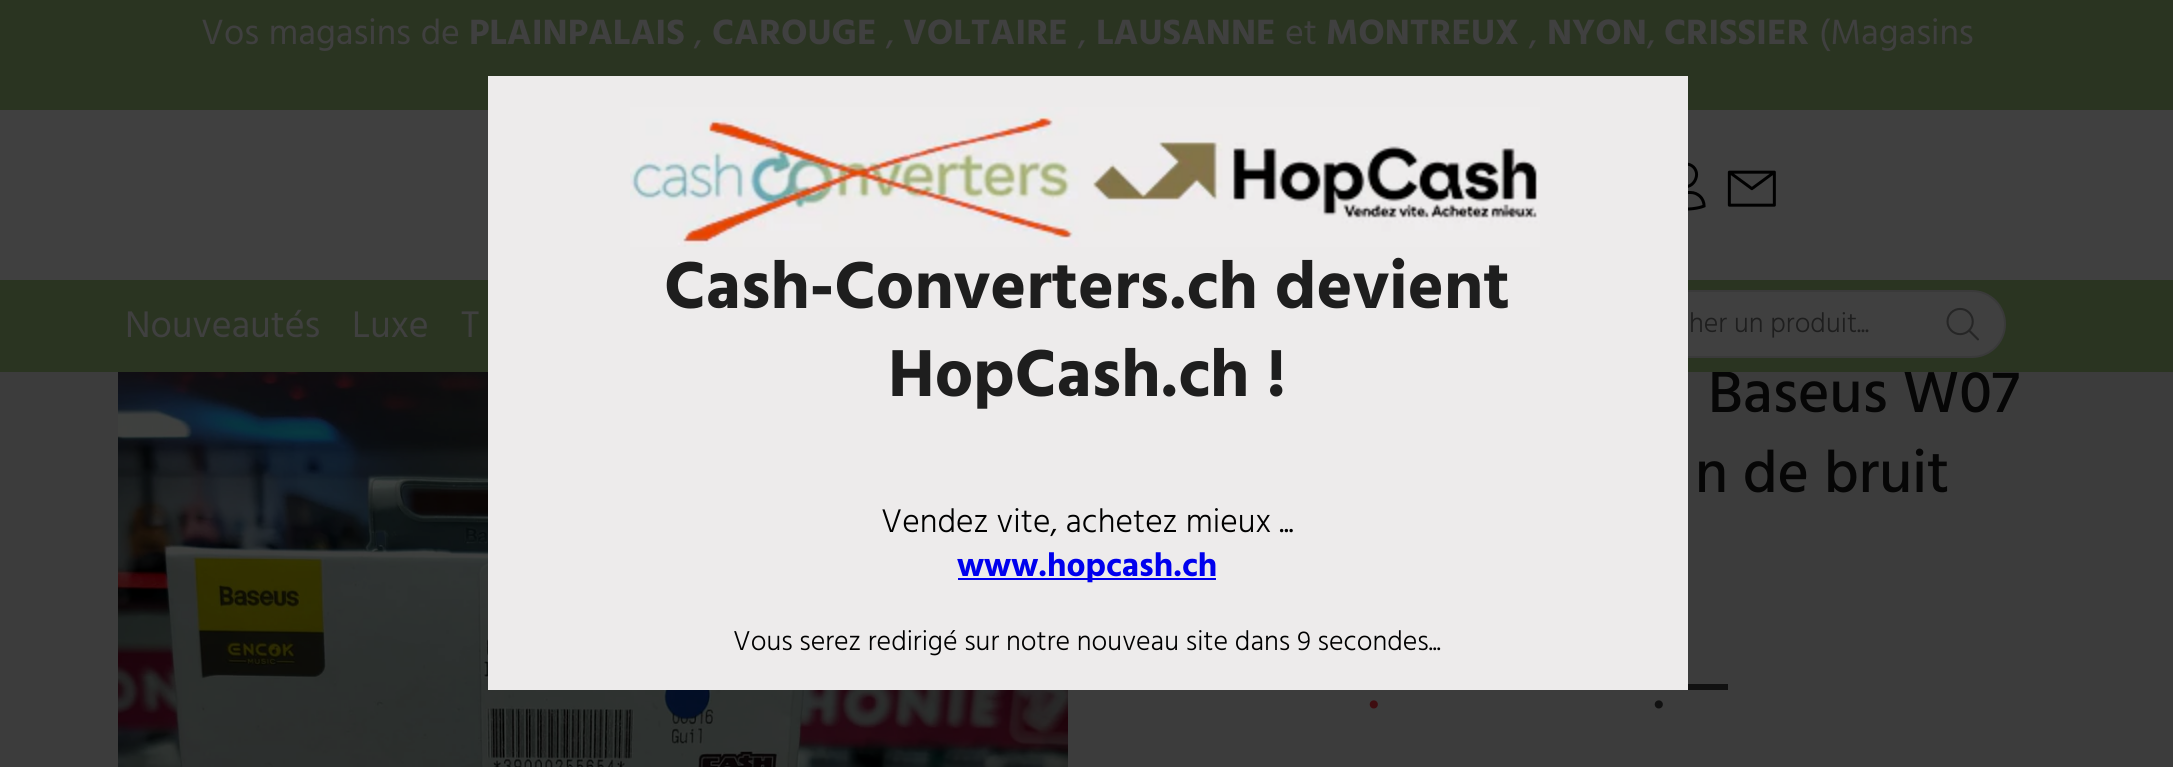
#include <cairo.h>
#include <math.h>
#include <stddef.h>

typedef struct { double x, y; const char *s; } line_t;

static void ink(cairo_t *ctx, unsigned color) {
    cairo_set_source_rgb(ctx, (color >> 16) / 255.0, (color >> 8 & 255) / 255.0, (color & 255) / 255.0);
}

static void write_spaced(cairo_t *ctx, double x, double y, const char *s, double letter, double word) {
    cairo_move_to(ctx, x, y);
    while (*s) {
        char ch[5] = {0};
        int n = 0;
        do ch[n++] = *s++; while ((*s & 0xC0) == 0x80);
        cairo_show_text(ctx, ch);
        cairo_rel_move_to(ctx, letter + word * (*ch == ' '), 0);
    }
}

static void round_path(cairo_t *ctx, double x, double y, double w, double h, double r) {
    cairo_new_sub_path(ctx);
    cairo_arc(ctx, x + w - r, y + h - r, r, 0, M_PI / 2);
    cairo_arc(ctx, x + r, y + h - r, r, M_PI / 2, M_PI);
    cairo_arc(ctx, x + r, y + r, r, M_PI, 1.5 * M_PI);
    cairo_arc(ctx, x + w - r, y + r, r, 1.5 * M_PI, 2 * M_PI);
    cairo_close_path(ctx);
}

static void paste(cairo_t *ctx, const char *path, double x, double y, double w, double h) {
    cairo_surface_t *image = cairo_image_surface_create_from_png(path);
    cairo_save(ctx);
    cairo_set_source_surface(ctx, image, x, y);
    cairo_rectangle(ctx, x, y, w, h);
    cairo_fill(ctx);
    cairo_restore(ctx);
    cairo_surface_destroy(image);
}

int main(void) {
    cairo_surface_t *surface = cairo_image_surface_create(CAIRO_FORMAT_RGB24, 2173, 767);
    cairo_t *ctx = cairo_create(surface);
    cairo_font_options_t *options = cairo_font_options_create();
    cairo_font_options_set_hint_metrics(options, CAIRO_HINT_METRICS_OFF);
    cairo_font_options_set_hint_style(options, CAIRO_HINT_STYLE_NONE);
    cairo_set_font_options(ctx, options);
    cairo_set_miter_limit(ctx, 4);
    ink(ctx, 0x3C3C3C);
    cairo_paint(ctx);
    cairo_select_font_face(ctx, "Hind Medium", CAIRO_FONT_SLANT_NORMAL, CAIRO_FONT_WEIGHT_NORMAL);
    cairo_set_font_size(ctx, 60);
    ink(ctx, 0x060606);
    cairo_move_to(ctx, 1708, 412);
    cairo_show_text(ctx, "Baseus W07");
    ink(ctx, 0x2A3421);
    cairo_rectangle(ctx, 0, 0, 2173, 372);
    cairo_fill(ctx);
    cairo_select_font_face(ctx, "Hind", CAIRO_FONT_SLANT_NORMAL, CAIRO_FONT_WEIGHT_NORMAL);
    cairo_set_font_size(ctx, 36);
    ink(ctx, 0x404040);
    write_spaced(ctx, 201, 44, "Vos magasins de", 0, 1);
    cairo_select_font_face(ctx, "Hind", CAIRO_FONT_SLANT_NORMAL, CAIRO_FONT_WEIGHT_BOLD);
    cairo_move_to(ctx, 469, 44);
    cairo_show_text(ctx, "PLAINPALAIS");
    cairo_select_font_face(ctx, "Hind", CAIRO_FONT_SLANT_NORMAL, CAIRO_FONT_WEIGHT_NORMAL);
    cairo_move_to(ctx, 694, 44);
    cairo_show_text(ctx, ",");
    cairo_select_font_face(ctx, "Hind", CAIRO_FONT_SLANT_NORMAL, CAIRO_FONT_WEIGHT_BOLD);
    cairo_move_to(ctx, 712, 44);
    cairo_show_text(ctx, "CAROUGE");
    cairo_select_font_face(ctx, "Hind", CAIRO_FONT_SLANT_NORMAL, CAIRO_FONT_WEIGHT_NORMAL);
    cairo_move_to(ctx, 886, 44);
    cairo_show_text(ctx, ",");
    cairo_select_font_face(ctx, "Hind", CAIRO_FONT_SLANT_NORMAL, CAIRO_FONT_WEIGHT_BOLD);
    cairo_move_to(ctx, 903, 44);
    cairo_show_text(ctx, "VOLTAIRE");
    cairo_select_font_face(ctx, "Hind", CAIRO_FONT_SLANT_NORMAL, CAIRO_FONT_WEIGHT_NORMAL);
    cairo_move_to(ctx, 1078, 44);
    cairo_show_text(ctx, ",");
    cairo_select_font_face(ctx, "Hind", CAIRO_FONT_SLANT_NORMAL, CAIRO_FONT_WEIGHT_BOLD);
    cairo_move_to(ctx, 1096, 44);
    cairo_show_text(ctx, "LAUSANNE");
    cairo_select_font_face(ctx, "Hind", CAIRO_FONT_SLANT_NORMAL, CAIRO_FONT_WEIGHT_NORMAL);
    cairo_move_to(ctx, 1285, 44);
    cairo_show_text(ctx, "et");
    cairo_select_font_face(ctx, "Hind", CAIRO_FONT_SLANT_NORMAL, CAIRO_FONT_WEIGHT_BOLD);
    cairo_move_to(ctx, 1326, 44);
    cairo_show_text(ctx, "MONTREUX");
    cairo_select_font_face(ctx, "Hind", CAIRO_FONT_SLANT_NORMAL, CAIRO_FONT_WEIGHT_NORMAL);
    cairo_move_to(ctx, 1529, 44);
    cairo_show_text(ctx, ",");
    cairo_select_font_face(ctx, "Hind", CAIRO_FONT_SLANT_NORMAL, CAIRO_FONT_WEIGHT_BOLD);
    cairo_move_to(ctx, 1547, 44);
    cairo_show_text(ctx, "NYON");
    cairo_select_font_face(ctx, "Hind", CAIRO_FONT_SLANT_NORMAL, CAIRO_FONT_WEIGHT_NORMAL);
    cairo_move_to(ctx, 1647, 44);
    cairo_show_text(ctx, ",");
    cairo_select_font_face(ctx, "Hind", CAIRO_FONT_SLANT_NORMAL, CAIRO_FONT_WEIGHT_BOLD);
    cairo_move_to(ctx, 1664, 44);
    cairo_show_text(ctx, "CRISSIER");
    cairo_select_font_face(ctx, "Hind", CAIRO_FONT_SLANT_NORMAL, CAIRO_FONT_WEIGHT_NORMAL);
    cairo_move_to(ctx, 1819, 44);
    cairo_show_text(ctx, "(Magasins");
    cairo_rectangle(ctx, 0, 110, 2173, 170);
    cairo_fill(ctx);
    paste(ctx, "media/1.png", 1688, 162, 18, 49);
    paste(ctx, "media/2.png", 1727, 170, 49, 37);
    cairo_set_font_size(ctx, 38);
    {
        static const line_t items[] = {
            {125, 337, "Nouveautés"},
            {352, 337, "Luxe"},
            {461, 337, "T"},
        };
        for (size_t i = 0; i < sizeof items / sizeof *items; i++) {
            cairo_move_to(ctx, items[i].x, items[i].y);
            cairo_show_text(ctx, items[i].s);
        }
    }
    round_path(ctx, 1527, 291, 478, 66, 33);
    cairo_fill_preserve(ctx);
    ink(ctx, 0x3A3A3A);
    cairo_stroke(ctx);
    cairo_select_font_face(ctx, "Hind Light", CAIRO_FONT_SLANT_NORMAL, CAIRO_FONT_WEIGHT_NORMAL);
    cairo_set_font_size(ctx, 28);
    ink(ctx, 0x1E1E1E);
    cairo_move_to(ctx, 1689, 332);
    cairo_show_text(ctx, "her un produit...");
    paste(ctx, "media/3.png", 1946, 307, 33, 34);
    paste(ctx, "media/5.png", 118, 372, 950, 395);
    ink(ctx, 0xEDEBEB);
    cairo_rectangle(ctx, 488, 76, 1200, 614);
    cairo_fill(ctx);
    paste(ctx, "media/4.png", 630, 107, 910, 140);
    cairo_select_font_face(ctx, "Hind", CAIRO_FONT_SLANT_NORMAL, CAIRO_FONT_WEIGHT_BOLD);
    cairo_set_font_size(ctx, 68);
    ink(ctx, 0x1E1E1E);
    cairo_move_to(ctx, 664, 308);
    cairo_show_text(ctx, "Cash-Converters.ch devient");
    cairo_move_to(ctx, 888, 396);
    cairo_show_text(ctx, "HopCash.ch !");
    cairo_select_font_face(ctx, "Hind Light", CAIRO_FONT_SLANT_NORMAL, CAIRO_FONT_WEIGHT_NORMAL);
    cairo_set_font_size(ctx, 33.6);
    ink(ctx, 0x000000);
    cairo_move_to(ctx, 881, 532);
    cairo_show_text(ctx, "Vendez vite, achetez mieux ...");
    ink(ctx, 0x0000EE);
    cairo_rectangle(ctx, 958, 578, 258, 2);
    cairo_fill(ctx);
    cairo_select_font_face(ctx, "Hind", CAIRO_FONT_SLANT_NORMAL, CAIRO_FONT_WEIGHT_BOLD);
    cairo_move_to(ctx, 957, 576);
    cairo_show_text(ctx, "www.hopcash.ch");
    cairo_select_font_face(ctx, "Hind Light", CAIRO_FONT_SLANT_NORMAL, CAIRO_FONT_WEIGHT_NORMAL);
    cairo_set_font_size(ctx, 28);
    ink(ctx, 0x000000);
    cairo_move_to(ctx, 733, 650);
    cairo_show_text(ctx, "Vous serez redirigé sur notre nouveau site dans 9 secondes...");
    cairo_select_font_face(ctx, "Hind Medium", CAIRO_FONT_SLANT_NORMAL, CAIRO_FONT_WEIGHT_NORMAL);
    cairo_set_font_size(ctx, 60);
    ink(ctx, 0x060606);
    cairo_move_to(ctx, 1695, 492);
    cairo_show_text(ctx, "n de bruit");
    ink(ctx, 0x3E0D10);
    cairo_move_to(ctx, 1368, 708);
    cairo_show_text(ctx, ".");
    ink(ctx, 0x111111);
    cairo_move_to(ctx, 1653, 708);
    cairo_show_text(ctx, ".");
    cairo_rectangle(ctx, 1688, 684, 40, 6);
    cairo_fill(ctx);
    cairo_surface_write_to_png(surface, "image.png");
    cairo_font_options_destroy(options);
    cairo_destroy(ctx);
    cairo_surface_destroy(surface);
    return 0;
}
